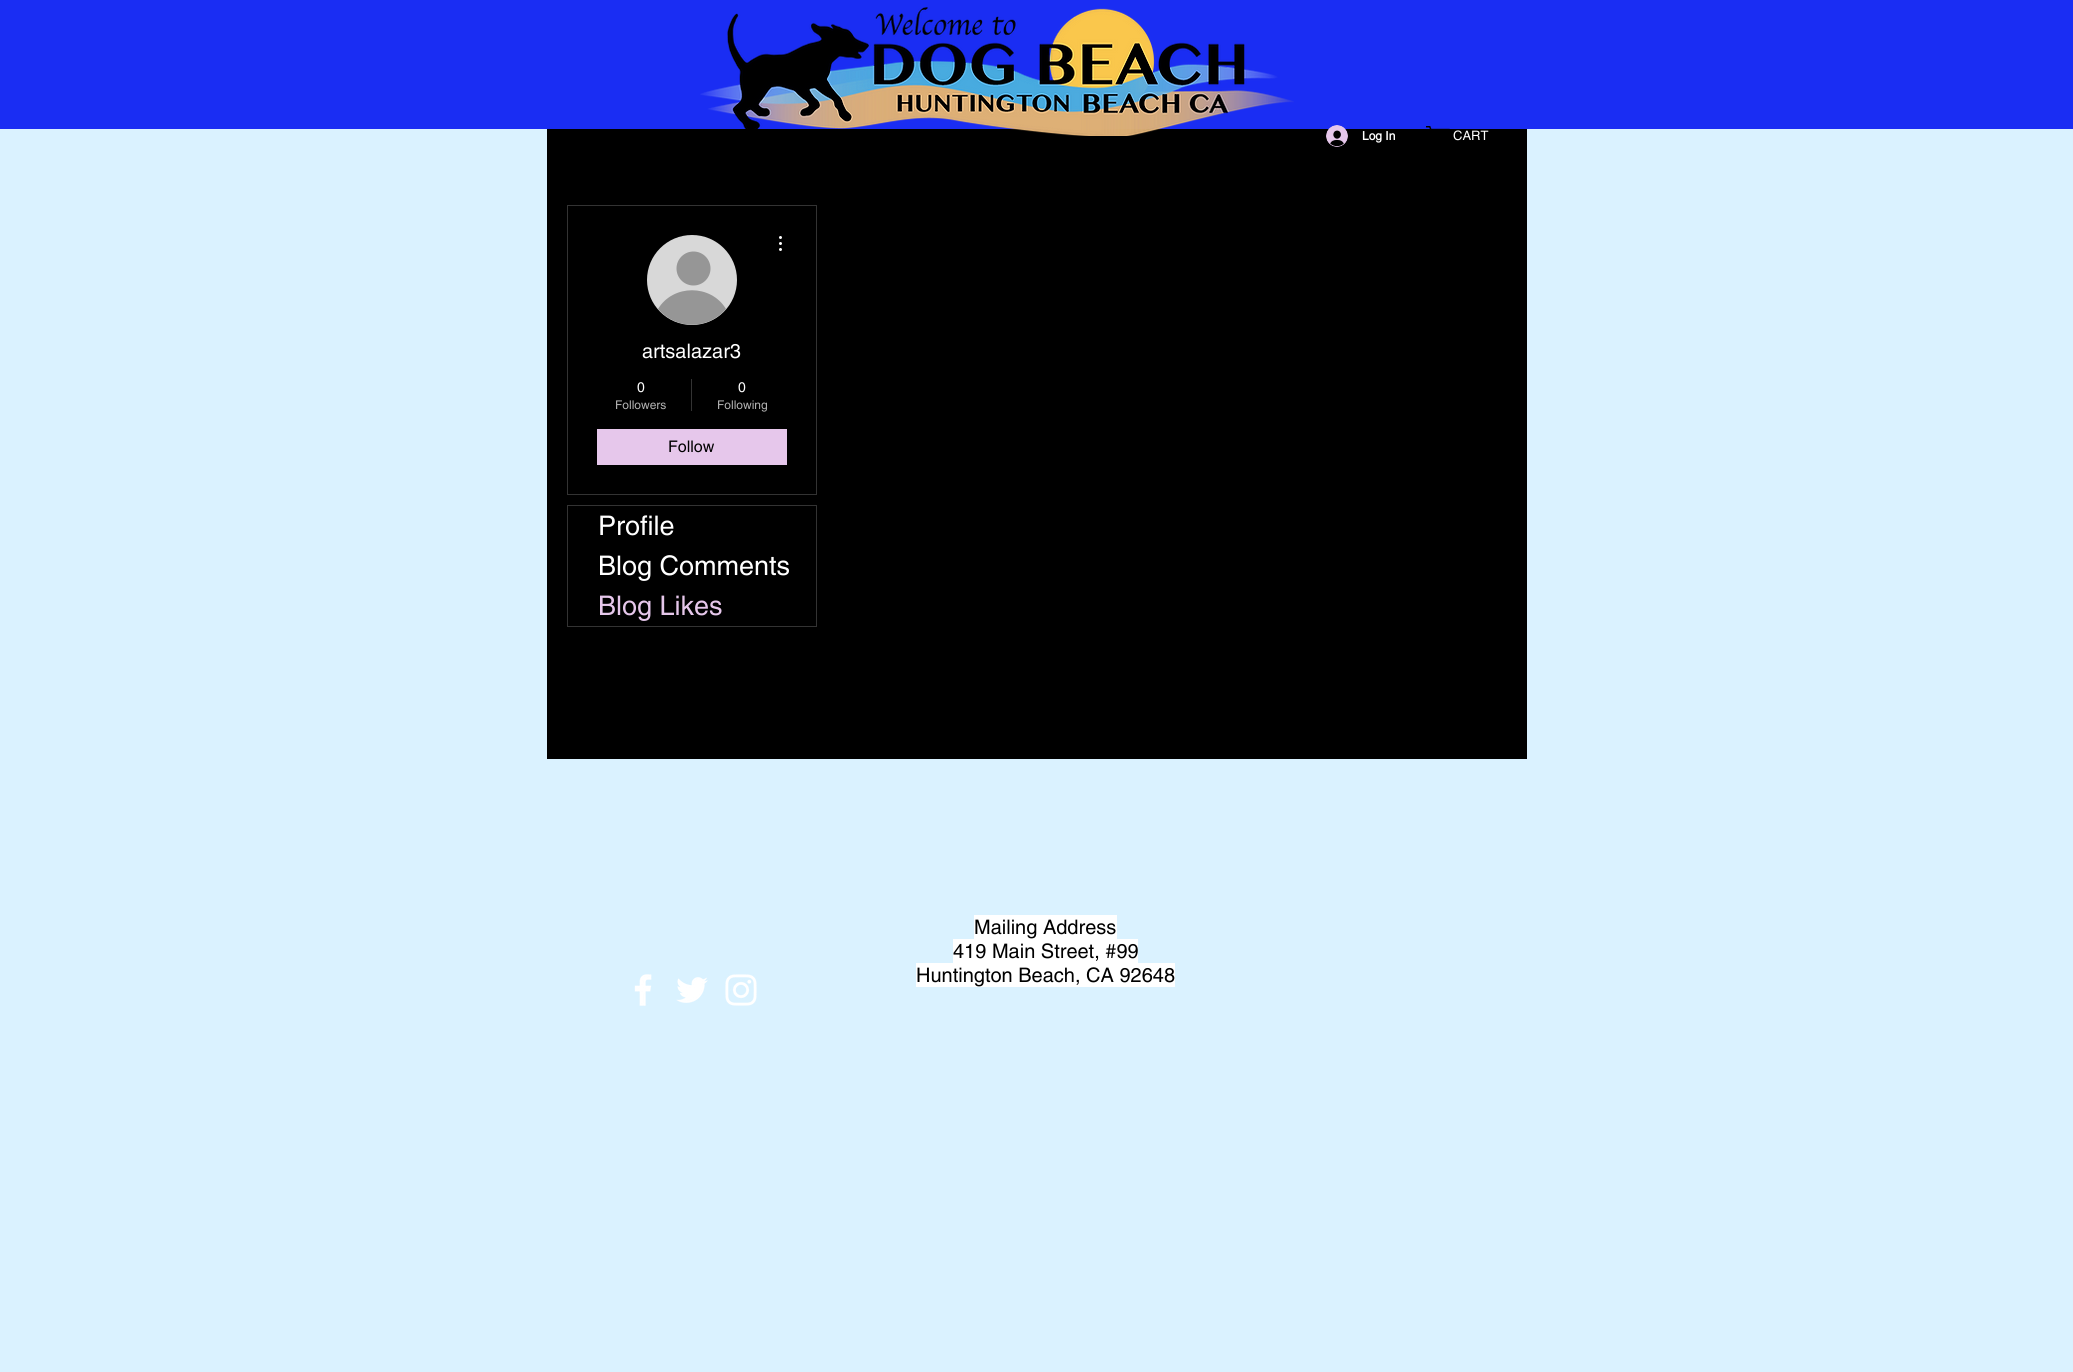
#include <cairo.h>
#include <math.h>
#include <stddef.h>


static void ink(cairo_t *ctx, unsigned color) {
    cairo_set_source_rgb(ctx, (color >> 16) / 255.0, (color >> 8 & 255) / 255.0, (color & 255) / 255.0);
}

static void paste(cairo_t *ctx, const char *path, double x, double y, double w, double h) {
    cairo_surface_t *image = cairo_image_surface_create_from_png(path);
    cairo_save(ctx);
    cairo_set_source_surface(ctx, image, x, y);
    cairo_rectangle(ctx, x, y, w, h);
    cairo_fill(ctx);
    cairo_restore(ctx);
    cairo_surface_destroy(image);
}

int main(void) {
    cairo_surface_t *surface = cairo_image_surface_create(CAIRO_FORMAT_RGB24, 2073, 1372);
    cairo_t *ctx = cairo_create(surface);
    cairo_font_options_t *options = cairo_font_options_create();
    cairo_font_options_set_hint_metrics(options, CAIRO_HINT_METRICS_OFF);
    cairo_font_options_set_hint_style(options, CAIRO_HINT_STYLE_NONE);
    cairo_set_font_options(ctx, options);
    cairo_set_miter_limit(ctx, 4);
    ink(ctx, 0xDAF2FF);
    cairo_paint(ctx);
    ink(ctx, 0x000000);
    cairo_rectangle(ctx, 547, 129, 980, 630);
    cairo_fill(ctx);
    ink(ctx, 0x1A2DF3);
    cairo_rectangle(ctx, 0, 0, 2073, 129);
    cairo_fill(ctx);
    paste(ctx, "media/1.png", 700, 7, 594, 129);
    paste(ctx, "media/2.png", 1326, 125, 22, 22);
    cairo_select_font_face(ctx, "helvetica", CAIRO_FONT_SLANT_NORMAL, CAIRO_FONT_WEIGHT_BOLD);
    cairo_set_font_size(ctx, 12);
    ink(ctx, 0xFFFFFF);
    cairo_move_to(ctx, 1362, 140);
    cairo_show_text(ctx, "Log In");
    paste(ctx, "media/3.png", 1426, 126, 24, 3);
    cairo_select_font_face(ctx, "helvetica", CAIRO_FONT_SLANT_NORMAL, CAIRO_FONT_WEIGHT_NORMAL);
    cairo_set_font_size(ctx, 13);
    cairo_move_to(ctx, 1453, 140);
    cairo_show_text(ctx, "CART");
    cairo_rectangle(ctx, 567.5, 205.5, 249, 289);
    ink(ctx, 0x333333);
    cairo_set_line_width(ctx, 1);
    cairo_stroke(ctx);
    ink(ctx, 0xD8D8D8);
    cairo_arc(ctx, 692, 280, 45, 0, 2 * M_PI);
    cairo_fill(ctx);
    ink(ctx, 0x969696);
    cairo_arc(ctx, 693.5, 268.5, 17, 0, 2 * M_PI);
    cairo_fill(ctx);
    cairo_new_path(ctx);
    cairo_move_to(ctx, 726, 309);
    cairo_curve_to(ctx, 708, 330, 676, 330, 658, 309);
    cairo_curve_to(ctx, 673, 284, 711, 284, 726, 309);
    cairo_close_path(ctx);
    cairo_fill(ctx);
    paste(ctx, "media/4.png", 779, 236, 3, 15);
    cairo_set_font_size(ctx, 20);
    ink(ctx, 0xFFFFFF);
    cairo_move_to(ctx, 642, 358);
    cairo_show_text(ctx, "artsalazar3");
    cairo_set_font_size(ctx, 14);
    cairo_move_to(ctx, 637, 392);
    cairo_show_text(ctx, "0");
    cairo_set_font_size(ctx, 12);
    ink(ctx, 0xB3B3B3);
    cairo_move_to(ctx, 615, 409);
    cairo_show_text(ctx, "Followers");
    ink(ctx, 0x333333);
    cairo_rectangle(ctx, 691, 379, 1, 32);
    cairo_fill(ctx);
    cairo_set_font_size(ctx, 14);
    ink(ctx, 0xFFFFFF);
    cairo_move_to(ctx, 738, 392);
    cairo_show_text(ctx, "0");
    cairo_set_font_size(ctx, 12);
    ink(ctx, 0xB3B3B3);
    cairo_move_to(ctx, 717, 409);
    cairo_show_text(ctx, "Following");
    ink(ctx, 0xE6C7EB);
    cairo_rectangle(ctx, 597, 429, 190, 36);
    cairo_fill(ctx);
    cairo_set_font_size(ctx, 16);
    ink(ctx, 0x000000);
    cairo_move_to(ctx, 668, 452);
    cairo_show_text(ctx, "Follow");
    cairo_rectangle(ctx, 567.5, 505.5, 249, 121);
    ink(ctx, 0x333333);
    cairo_stroke(ctx);
    cairo_set_font_size(ctx, 27);
    ink(ctx, 0xFFFFFF);
    cairo_move_to(ctx, 598, 535);
    cairo_show_text(ctx, "Profile");
    cairo_move_to(ctx, 598, 575);
    cairo_show_text(ctx, "Blog Comments");
    ink(ctx, 0xE6C7EB);
    cairo_move_to(ctx, 598, 615);
    cairo_show_text(ctx, "Blog Likes");
    paste(ctx, "media/5.png", 634, 974, 18, 32);
    paste(ctx, "media/6.png", 676, 977, 32, 26);
    paste(ctx, "media/7.png", 725, 974, 32, 32);
    ink(ctx, 0xFFFFFF);
    cairo_rectangle(ctx, 974, 915, 143, 24);
    cairo_fill(ctx);
    cairo_set_font_size(ctx, 20);
    ink(ctx, 0x000000);
    cairo_move_to(ctx, 974, 934);
    cairo_show_text(ctx, "Mailing Address");
    ink(ctx, 0xFFFFFF);
    cairo_rectangle(ctx, 953, 939, 185, 24);
    cairo_fill(ctx);
    ink(ctx, 0x000000);
    cairo_move_to(ctx, 953, 958);
    cairo_show_text(ctx, "419 Main Street, #99");
    ink(ctx, 0xFFFFFF);
    cairo_rectangle(ctx, 916, 963, 259, 24);
    cairo_fill(ctx);
    ink(ctx, 0x000000);
    cairo_move_to(ctx, 916, 982);
    cairo_show_text(ctx, "Huntington Beach, CA 92648");
    cairo_surface_write_to_png(surface, "image.png");
    cairo_font_options_destroy(options);
    cairo_destroy(ctx);
    cairo_surface_destroy(surface);
    return 0;
}
